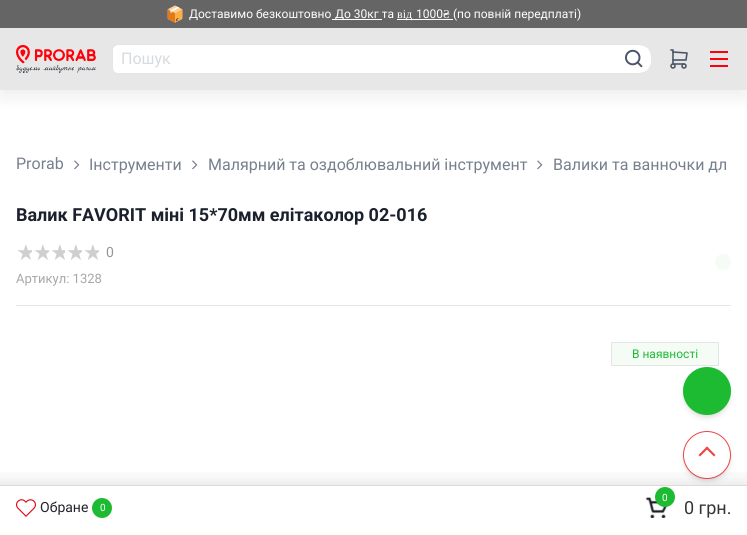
#include <cairo.h>
#include <math.h>
#include <stddef.h>


static void ink(cairo_t *ctx, unsigned color) {
    cairo_set_source_rgb(ctx, (color >> 16) / 255.0, (color >> 8 & 255) / 255.0, (color & 255) / 255.0);
}

static void round_path(cairo_t *ctx, double x, double y, double w, double h, double r) {
    cairo_new_sub_path(ctx);
    cairo_arc(ctx, x + w - r, y + h - r, r, 0, M_PI / 2);
    cairo_arc(ctx, x + r, y + h - r, r, M_PI / 2, M_PI);
    cairo_arc(ctx, x + r, y + r, r, M_PI, 1.5 * M_PI);
    cairo_arc(ctx, x + w - r, y + r, r, 1.5 * M_PI, 2 * M_PI);
    cairo_close_path(ctx);
}

static void blur_box(cairo_t *ctx, double x, double y, double w, double h, double r, double blur, double alpha) {
    cairo_push_group_with_content(ctx, CAIRO_CONTENT_ALPHA);
    cairo_set_operator(ctx, CAIRO_OPERATOR_SOURCE);
    for (int i = 15; i >= -15 && fmin(w, h) + blur * i / 3 > 0; i -= 2) {
        double e = blur * i / 6;
        cairo_set_source_rgba(ctx, 0, 0, 0, alpha * erfc((i - 1) / 8.5) / 2);
        round_path(ctx, x - e, y - e, w + 2 * e, h + 2 * e, fmax(0, fmin(r + e + blur * .6, fmin(w, h) / 2 + e)));
        cairo_fill(ctx);
    }
    cairo_pattern_t *soft = cairo_pop_group(ctx);
    cairo_mask(ctx, soft);
    cairo_pattern_destroy(soft);
}

static void paste(cairo_t *ctx, const char *path, double x, double y, double w, double h) {
    cairo_surface_t *image = cairo_image_surface_create_from_png(path);
    cairo_save(ctx);
    cairo_set_source_surface(ctx, image, x, y);
    cairo_rectangle(ctx, x, y, w, h);
    cairo_fill(ctx);
    cairo_restore(ctx);
    cairo_surface_destroy(image);
}

int main(void) {
    cairo_surface_t *surface = cairo_image_surface_create(CAIRO_FORMAT_RGB24, 747, 535);
    cairo_t *ctx = cairo_create(surface);
    cairo_font_options_t *options = cairo_font_options_create();
    cairo_font_options_set_hint_metrics(options, CAIRO_HINT_METRICS_OFF);
    cairo_font_options_set_hint_style(options, CAIRO_HINT_STYLE_NONE);
    cairo_set_font_options(ctx, options);
    cairo_set_miter_limit(ctx, 4);
    ink(ctx, 0xFFFFFF);
    cairo_paint(ctx);
    ink(ctx, 0x303133);
    blur_box(ctx, 0, 8, 747, 90, 0, 8, 0.08);
    ink(ctx, 0x656565);
    cairo_rectangle(ctx, 0, 0, 747, 28);
    cairo_fill(ctx);
    paste(ctx, "media/1.png", 167, 5, 16, 18);
    cairo_select_font_face(ctx, "Roboto", CAIRO_FONT_SLANT_NORMAL, CAIRO_FONT_WEIGHT_NORMAL);
    cairo_set_font_size(ctx, 12);
    ink(ctx, 0xFFFFFF);
    cairo_move_to(ctx, 189, 18);
    cairo_show_text(ctx, "Доставимо безкоштовно");
    cairo_rectangle(ctx, 332, 19, 50, 1);
    cairo_fill(ctx);
    cairo_move_to(ctx, 335, 18);
    cairo_show_text(ctx, "До 30кг та");
    cairo_rectangle(ctx, 397, 19, 56, 1);
    cairo_fill(ctx);
    cairo_select_font_face(ctx, "Liberation Serif", CAIRO_FONT_SLANT_NORMAL, CAIRO_FONT_WEIGHT_NORMAL);
    cairo_move_to(ctx, 397, 18);
    cairo_show_text(ctx, "від");
    cairo_select_font_face(ctx, "Roboto", CAIRO_FONT_SLANT_NORMAL, CAIRO_FONT_WEIGHT_NORMAL);
    cairo_move_to(ctx, 416, 18);
    cairo_show_text(ctx, "1000");
    cairo_select_font_face(ctx, "Liberation Serif", CAIRO_FONT_SLANT_NORMAL, CAIRO_FONT_WEIGHT_NORMAL);
    cairo_move_to(ctx, 443, 18);
    cairo_show_text(ctx, "₴");
    cairo_select_font_face(ctx, "Roboto", CAIRO_FONT_SLANT_NORMAL, CAIRO_FONT_WEIGHT_NORMAL);
    cairo_move_to(ctx, 453, 18);
    cairo_show_text(ctx, "(по повній передплаті)");
    ink(ctx, 0xE7E7E7);
    cairo_rectangle(ctx, 0, 28, 747, 62);
    cairo_fill(ctx);
    paste(ctx, "media/2.png", 16, 45, 80, 28);
    ink(ctx, 0xFFFFFF);
    cairo_new_path(ctx);
    cairo_move_to(ctx, 118, 45);
    cairo_line_to(ctx, 639, 45);
    cairo_curve_to(ctx, 646, 45, 651, 50, 651, 56);
    cairo_line_to(ctx, 651, 62);
    cairo_curve_to(ctx, 651, 68, 646, 73, 639, 73);
    cairo_line_to(ctx, 118, 73);
    cairo_curve_to(ctx, 115, 73, 113, 71, 113, 68);
    cairo_line_to(ctx, 113, 50);
    cairo_curve_to(ctx, 113, 47, 115, 45, 118, 45);
    cairo_close_path(ctx);
    cairo_fill(ctx);
    ink(ctx, 0xE5E5E5);
    cairo_set_fill_rule(ctx, CAIRO_FILL_RULE_EVEN_ODD);
    cairo_new_path(ctx);
    cairo_move_to(ctx, 118, 44);
    cairo_line_to(ctx, 641, 44);
    cairo_curve_to(ctx, 652, 46, 654, 64, 647, 70);
    cairo_curve_to(ctx, 645, 73, 642, 74, 639, 74);
    cairo_line_to(ctx, 118, 74);
    cairo_curve_to(ctx, 110, 74, 112, 64, 112, 59);
    cairo_curve_to(ctx, 112, 54, 110, 44, 118, 44);
    cairo_close_path(ctx);
    cairo_move_to(ctx, 118, 45);
    cairo_line_to(ctx, 639, 45);
    cairo_curve_to(ctx, 646, 45, 651, 50, 651, 56);
    cairo_line_to(ctx, 651, 62);
    cairo_curve_to(ctx, 651, 68, 646, 73, 639, 73);
    cairo_line_to(ctx, 118, 73);
    cairo_curve_to(ctx, 115, 73, 113, 71, 113, 68);
    cairo_line_to(ctx, 113, 50);
    cairo_curve_to(ctx, 113, 47, 115, 45, 118, 45);
    cairo_close_path(ctx);
    cairo_fill(ctx);
    cairo_set_font_size(ctx, 16);
    ink(ctx, 0xD7DADF);
    cairo_move_to(ctx, 121, 64);
    cairo_show_text(ctx, "Пошук");
    paste(ctx, "media/3.png", 625, 49, 18, 19);
    paste(ctx, "media/4.png", 670, 49, 18, 20);
    paste(ctx, "media/5.png", 710, 51, 18, 16);
    ink(ctx, 0x77808E);
    cairo_move_to(ctx, 16, 169);
    cairo_show_text(ctx, "Prorab");
    paste(ctx, "media/6.png", 74, 160, 6, 10);
    cairo_move_to(ctx, 89, 170);
    cairo_show_text(ctx, "Інструменти");
    paste(ctx, "media/6.png", 192, 160, 6, 10);
    cairo_move_to(ctx, 208, 170);
    cairo_show_text(ctx, "Малярний та оздоблювальний інструмент");
    paste(ctx, "media/6.png", 537, 160, 6, 10);
    cairo_move_to(ctx, 553, 170);
    cairo_show_text(ctx, "Валики та ванночки дл");
    cairo_select_font_face(ctx, "Roboto", CAIRO_FONT_SLANT_NORMAL, CAIRO_FONT_WEIGHT_BOLD);
    cairo_set_font_size(ctx, 18);
    ink(ctx, 0x1A202C);
    cairo_move_to(ctx, 16, 221);
    cairo_show_text(ctx, "Валик FAVORIT міні 15*70мм елітаколор 02-016");
    ink(ctx, 0xE7E7E7);
    cairo_rectangle(ctx, 16, 305, 715, 1);
    cairo_fill(ctx);
    cairo_save(ctx);
    cairo_set_fill_rule(ctx, CAIRO_FILL_RULE_WINDING);
    cairo_rectangle(ctx, 16, 236, 16, 33);
    cairo_clip(ctx);
    cairo_select_font_face(ctx, "DejaVu Sans", CAIRO_FONT_SLANT_NORMAL, CAIRO_FONT_WEIGHT_NORMAL);
    cairo_set_font_size(ctx, 22);
    ink(ctx, 0xCFCFCF);
    cairo_move_to(ctx, 16, 260);
    cairo_show_text(ctx, "★");
    cairo_restore(ctx);
    cairo_save(ctx);
    cairo_set_fill_rule(ctx, CAIRO_FILL_RULE_WINDING);
    cairo_rectangle(ctx, 33, 236, 16, 33);
    cairo_clip(ctx);
    cairo_select_font_face(ctx, "DejaVu Sans", CAIRO_FONT_SLANT_NORMAL, CAIRO_FONT_WEIGHT_NORMAL);
    cairo_set_font_size(ctx, 22);
    ink(ctx, 0xCFCFCF);
    cairo_move_to(ctx, 33, 260);
    cairo_show_text(ctx, "★");
    cairo_restore(ctx);
    cairo_save(ctx);
    cairo_set_fill_rule(ctx, CAIRO_FILL_RULE_WINDING);
    cairo_rectangle(ctx, 50, 236, 15, 33);
    cairo_clip(ctx);
    cairo_select_font_face(ctx, "DejaVu Sans", CAIRO_FONT_SLANT_NORMAL, CAIRO_FONT_WEIGHT_NORMAL);
    cairo_set_font_size(ctx, 22);
    ink(ctx, 0xCFCFCF);
    cairo_move_to(ctx, 50, 260);
    cairo_show_text(ctx, "★");
    cairo_restore(ctx);
    cairo_save(ctx);
    cairo_set_fill_rule(ctx, CAIRO_FILL_RULE_WINDING);
    cairo_rectangle(ctx, 66, 236, 16, 33);
    cairo_clip(ctx);
    cairo_select_font_face(ctx, "DejaVu Sans", CAIRO_FONT_SLANT_NORMAL, CAIRO_FONT_WEIGHT_NORMAL);
    cairo_set_font_size(ctx, 22);
    ink(ctx, 0xCFCFCF);
    cairo_move_to(ctx, 66, 260);
    cairo_show_text(ctx, "★");
    cairo_restore(ctx);
    cairo_save(ctx);
    cairo_set_fill_rule(ctx, CAIRO_FILL_RULE_WINDING);
    cairo_rectangle(ctx, 83, 236, 16, 33);
    cairo_clip(ctx);
    cairo_select_font_face(ctx, "DejaVu Sans", CAIRO_FONT_SLANT_NORMAL, CAIRO_FONT_WEIGHT_NORMAL);
    cairo_set_font_size(ctx, 22);
    ink(ctx, 0xCFCFCF);
    cairo_move_to(ctx, 83, 260);
    cairo_show_text(ctx, "★");
    cairo_restore(ctx);
    cairo_select_font_face(ctx, "Roboto", CAIRO_FONT_SLANT_NORMAL, CAIRO_FONT_WEIGHT_NORMAL);
    cairo_set_font_size(ctx, 14);
    ink(ctx, 0x979797);
    cairo_move_to(ctx, 106, 257);
    cairo_show_text(ctx, "0");
    cairo_set_font_size(ctx, 13);
    ink(ctx, 0xA7A7A7);
    cairo_move_to(ctx, 16, 283);
    cairo_show_text(ctx, "Артикул: 1328");
    ink(ctx, 0xF4FCF5);
    cairo_new_path(ctx);
    cairo_arc(ctx, 723, 262, 8, 0, 2 * M_PI);
    cairo_fill(ctx);
    cairo_rectangle(ctx, 611.5, 342.5, 107, 23);
    cairo_fill_preserve(ctx);
    ink(ctx, 0xE5E5E5);
    cairo_set_line_width(ctx, 1);
    cairo_stroke(ctx);
    cairo_set_font_size(ctx, 12);
    ink(ctx, 0x1CBB32);
    cairo_move_to(ctx, 632, 358);
    cairo_show_text(ctx, "В наявності");
    ink(ctx, 0x000000);
    blur_box(ctx, 685, 371, 44, 44, 22, 2, 0.1);
    blur_box(ctx, 684, 372, 46, 46, 23, 3, 0.1);
    ink(ctx, 0x1CBB32);
    cairo_arc(ctx, 707, 391, 24, 0, 2 * M_PI);
    cairo_fill(ctx);
    ink(ctx, 0x000000);
    blur_box(ctx, 685, 435, 44, 44, 22, 2, 0.1);
    blur_box(ctx, 684, 436, 46, 46, 23, 3, 0.1);
    ink(ctx, 0xFFFFFF);
    cairo_arc(ctx, 707, 455, 23.5, 0, 2 * M_PI);
    cairo_fill_preserve(ctx);
    ink(ctx, 0xEF4444);
    cairo_stroke(ctx);
    cairo_set_fill_rule(ctx, CAIRO_FILL_RULE_WINDING);
    cairo_new_path(ctx);
    cairo_move_to(ctx, 707, 446.5);
    cairo_line_to(ctx, 715.5, 455);
    cairo_line_to(ctx, 714, 456.5);
    cairo_line_to(ctx, 705.5, 448);
    cairo_close_path(ctx);
    cairo_fill(ctx);
    cairo_new_path(ctx);
    cairo_move_to(ctx, 707, 446.5);
    cairo_line_to(ctx, 708.5, 448);
    cairo_line_to(ctx, 700, 456.5);
    cairo_line_to(ctx, 698.5, 455);
    cairo_close_path(ctx);
    cairo_fill(ctx);
    cairo_save(ctx);
    cairo_rectangle(ctx, 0, 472, 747, 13);
    cairo_clip(ctx);
    ink(ctx, 0x323232);
    blur_box(ctx, -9, 483, 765, 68, 0, 10, 0.15);
    cairo_restore(ctx);
    ink(ctx, 0xDBDBDB);
    cairo_rectangle(ctx, 0, 485, 747, 1);
    cairo_fill(ctx);
    paste(ctx, "media/7.png", 16, 499, 20, 18);
    cairo_set_font_size(ctx, 14);
    ink(ctx, 0x22232C);
    cairo_move_to(ctx, 40, 512);
    cairo_show_text(ctx, "Обране");
    ink(ctx, 0x1CBB32);
    cairo_new_path(ctx);
    cairo_arc(ctx, 102, 508, 10, 0, 2 * M_PI);
    cairo_fill(ctx);
    cairo_set_font_size(ctx, 10);
    ink(ctx, 0xFFFFFF);
    cairo_move_to(ctx, 100, 511);
    cairo_show_text(ctx, "0");
    paste(ctx, "media/8.png", 645, 497, 23, 21);
    ink(ctx, 0x1CBB32);
    cairo_arc(ctx, 665, 497, 10, 0, 2 * M_PI);
    cairo_fill(ctx);
    ink(ctx, 0xFFFFFF);
    cairo_move_to(ctx, 662, 501);
    cairo_show_text(ctx, "0");
    cairo_set_font_size(ctx, 18);
    ink(ctx, 0x343434);
    cairo_move_to(ctx, 684, 514);
    cairo_show_text(ctx, "0 грн.");
    cairo_surface_write_to_png(surface, "image.png");
    cairo_font_options_destroy(options);
    cairo_destroy(ctx);
    cairo_surface_destroy(surface);
    return 0;
}
